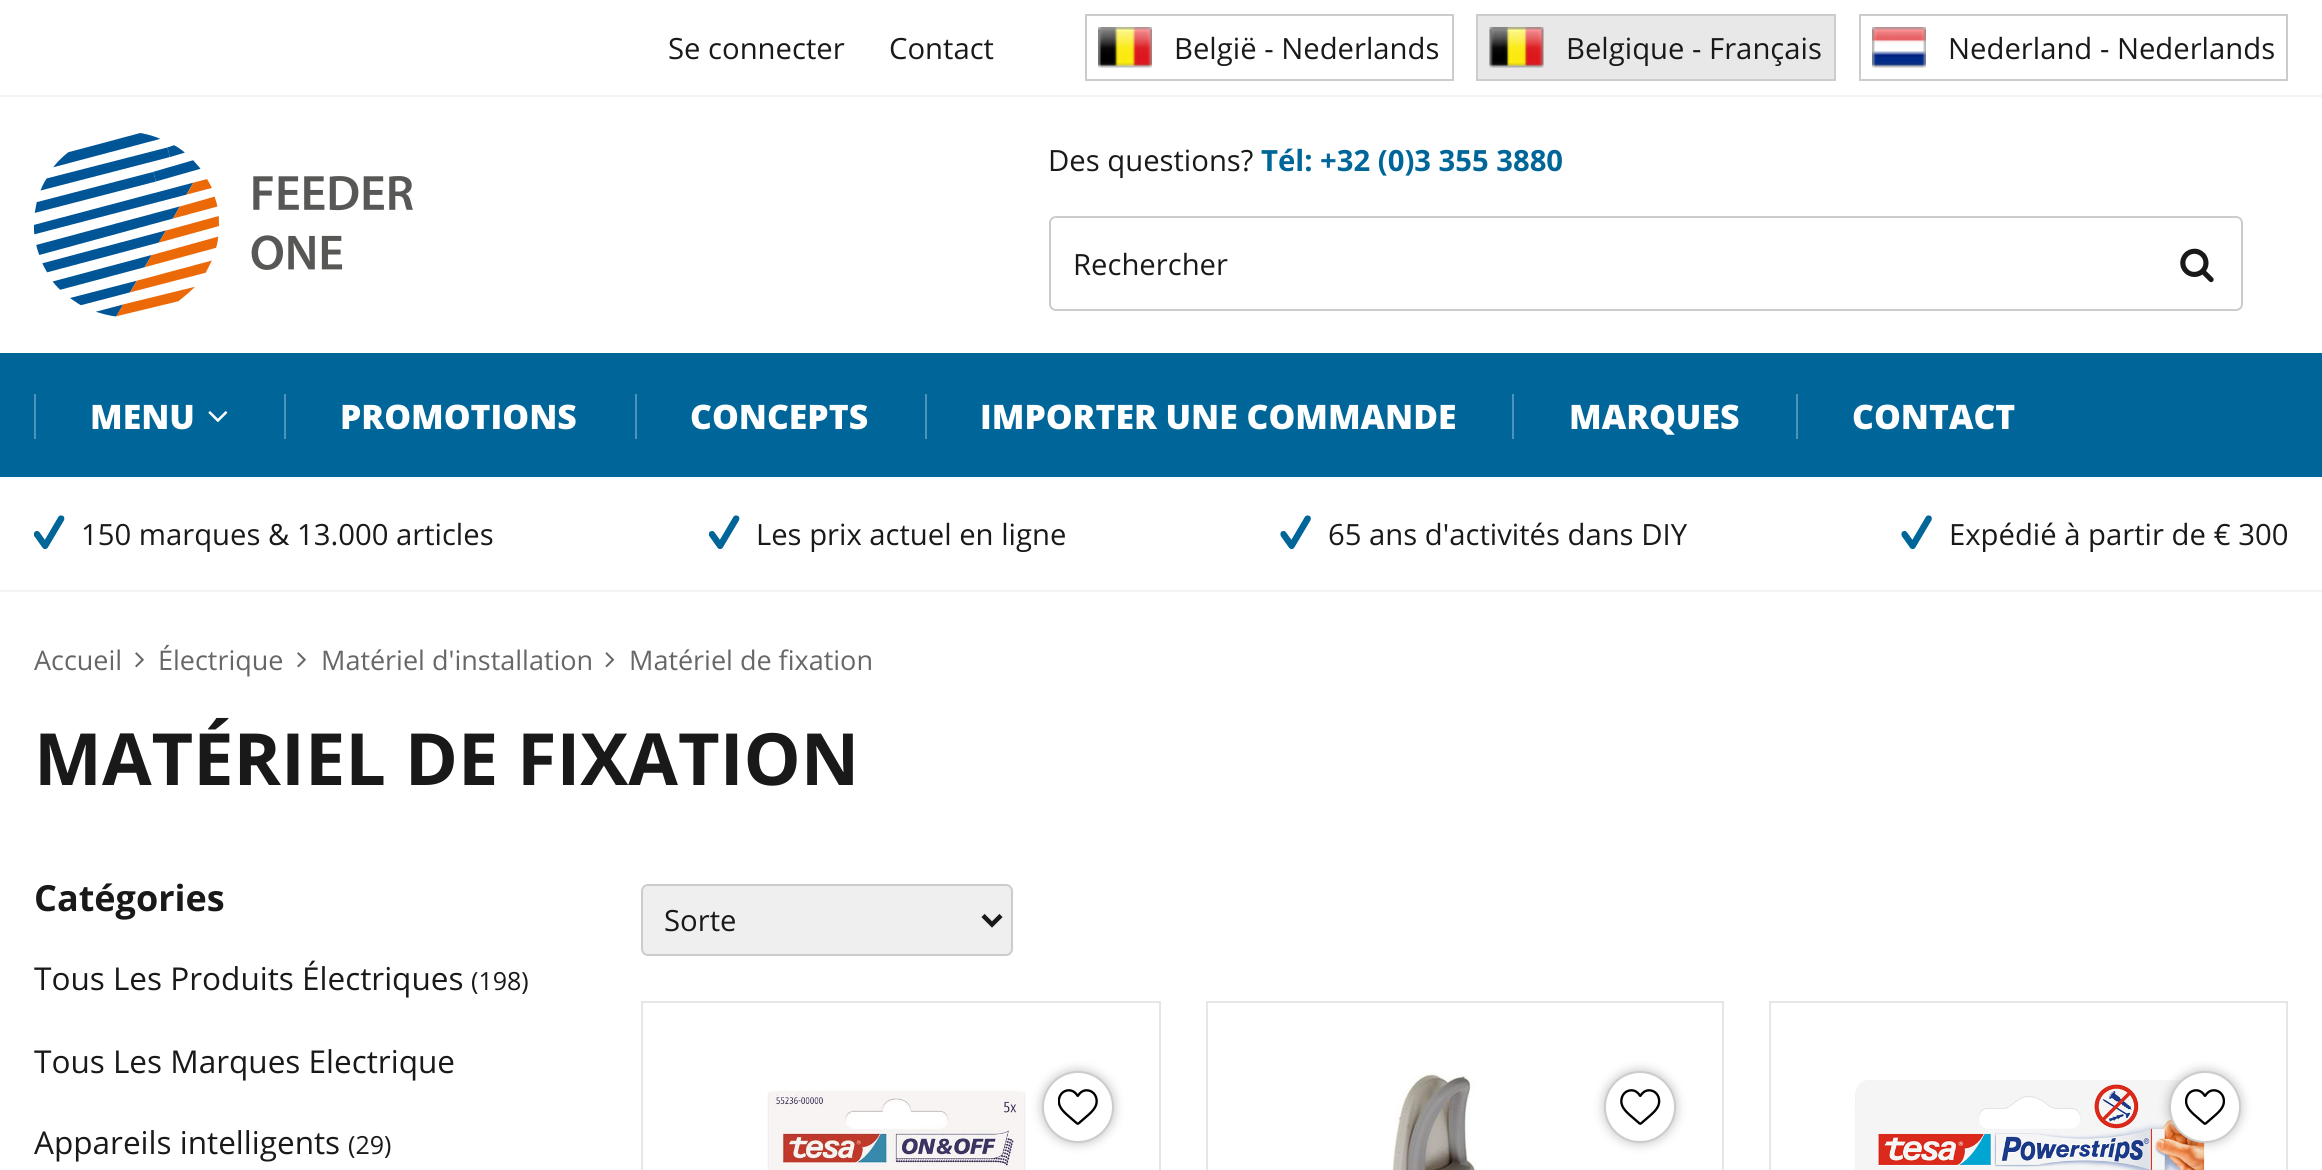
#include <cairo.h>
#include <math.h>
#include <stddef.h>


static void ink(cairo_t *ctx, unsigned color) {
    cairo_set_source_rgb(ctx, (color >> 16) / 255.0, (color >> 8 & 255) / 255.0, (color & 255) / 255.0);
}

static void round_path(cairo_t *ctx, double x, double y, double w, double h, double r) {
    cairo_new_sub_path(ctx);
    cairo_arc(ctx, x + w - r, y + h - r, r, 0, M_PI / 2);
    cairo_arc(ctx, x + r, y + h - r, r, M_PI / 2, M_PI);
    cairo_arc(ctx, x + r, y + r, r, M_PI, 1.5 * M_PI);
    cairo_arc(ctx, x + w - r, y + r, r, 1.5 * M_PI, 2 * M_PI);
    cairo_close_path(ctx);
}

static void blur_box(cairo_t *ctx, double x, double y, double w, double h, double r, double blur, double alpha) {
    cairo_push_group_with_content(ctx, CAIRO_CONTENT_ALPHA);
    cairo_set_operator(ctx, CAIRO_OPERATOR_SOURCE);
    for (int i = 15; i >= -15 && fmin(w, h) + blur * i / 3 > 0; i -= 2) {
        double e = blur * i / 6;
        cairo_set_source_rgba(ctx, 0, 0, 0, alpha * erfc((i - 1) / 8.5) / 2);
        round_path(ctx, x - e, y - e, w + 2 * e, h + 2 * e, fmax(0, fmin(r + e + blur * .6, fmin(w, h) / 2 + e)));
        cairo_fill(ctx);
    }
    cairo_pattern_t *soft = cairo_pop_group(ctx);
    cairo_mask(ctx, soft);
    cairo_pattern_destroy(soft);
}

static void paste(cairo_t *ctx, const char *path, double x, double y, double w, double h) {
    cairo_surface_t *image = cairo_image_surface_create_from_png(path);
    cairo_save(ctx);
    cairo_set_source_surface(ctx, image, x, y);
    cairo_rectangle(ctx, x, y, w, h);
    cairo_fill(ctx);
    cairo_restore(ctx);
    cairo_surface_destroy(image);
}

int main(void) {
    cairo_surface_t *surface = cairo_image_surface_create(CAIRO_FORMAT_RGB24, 2322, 1170);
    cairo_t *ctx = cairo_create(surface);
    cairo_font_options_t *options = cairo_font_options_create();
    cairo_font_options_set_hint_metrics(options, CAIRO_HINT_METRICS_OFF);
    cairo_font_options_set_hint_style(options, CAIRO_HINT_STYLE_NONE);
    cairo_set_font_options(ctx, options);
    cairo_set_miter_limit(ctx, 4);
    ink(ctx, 0xFFFFFF);
    cairo_paint(ctx);
    ink(ctx, 0xF4F4F4);
    cairo_rectangle(ctx, 0, 95, 2322, 2);
    cairo_fill(ctx);
    cairo_select_font_face(ctx, "Open Sans", CAIRO_FONT_SLANT_NORMAL, CAIRO_FONT_WEIGHT_NORMAL);
    cairo_set_font_size(ctx, 29.25);
    ink(ctx, 0x191919);
    cairo_move_to(ctx, 668, 59);
    cairo_show_text(ctx, "Se connecter");
    cairo_move_to(ctx, 889, 59);
    cairo_show_text(ctx, "Contact");
    cairo_rectangle(ctx, 1086, 15, 367, 65);
    ink(ctx, 0xCCCCCC);
    cairo_stroke(ctx);
    paste(ctx, "media/1.png", 1098, 27, 54, 41);
    ink(ctx, 0x191919);
    cairo_move_to(ctx, 1174, 59);
    cairo_show_text(ctx, "België - Nederlands");
    ink(ctx, 0xE8E8E8);
    cairo_rectangle(ctx, 1477, 15, 358, 65);
    cairo_fill_preserve(ctx);
    ink(ctx, 0xCCCCCC);
    cairo_stroke(ctx);
    paste(ctx, "media/2.png", 1489, 27, 55, 41);
    ink(ctx, 0x191919);
    cairo_move_to(ctx, 1566, 59);
    cairo_show_text(ctx, "Belgique - Français");
    cairo_rectangle(ctx, 1860, 15, 427, 65);
    ink(ctx, 0xCCCCCC);
    cairo_stroke(ctx);
    paste(ctx, "media/3.png", 1872, 27, 54, 41);
    ink(ctx, 0x191919);
    cairo_move_to(ctx, 1948, 59);
    cairo_show_text(ctx, "Nederland - Nederlands");
    paste(ctx, "media/4.png", 34, 133, 379, 184);
    cairo_move_to(ctx, 1048, 171);
    cairo_show_text(ctx, "Des questions?");
    cairo_select_font_face(ctx, "Open Sans", CAIRO_FONT_SLANT_NORMAL, CAIRO_FONT_WEIGHT_BOLD);
    ink(ctx, 0x006699);
    cairo_move_to(ctx, 1261, 171);
    cairo_show_text(ctx, "Tél: +32 (0)3 355 3880");
    round_path(ctx, 1050, 217, 1192, 93, 6);
    ink(ctx, 0xCCCCCC);
    cairo_stroke(ctx);
    cairo_select_font_face(ctx, "Open Sans", CAIRO_FONT_SLANT_NORMAL, CAIRO_FONT_WEIGHT_NORMAL);
    ink(ctx, 0x191919);
    cairo_move_to(ctx, 1073, 275);
    cairo_show_text(ctx, "Rechercher");
    paste(ctx, "media/5.png", 2180, 248, 34, 35);
    ink(ctx, 0x006699);
    cairo_rectangle(ctx, 0, 353, 2322, 124);
    cairo_fill(ctx);
    ink(ctx, 0x4D94B8);
    cairo_rectangle(ctx, 34, 394, 2, 45);
    cairo_fill(ctx);
    cairo_select_font_face(ctx, "Open Sans ExtraBold", CAIRO_FONT_SLANT_NORMAL, CAIRO_FONT_WEIGHT_NORMAL);
    cairo_set_font_size(ctx, 33.75);
    ink(ctx, 0xFFFFFF);
    cairo_move_to(ctx, 90, 429);
    cairo_show_text(ctx, "MENU");
    paste(ctx, "media/6.png", 208, 411, 20, 11);
    ink(ctx, 0x4D94B8);
    cairo_rectangle(ctx, 284, 394, 2, 45);
    cairo_fill(ctx);
    ink(ctx, 0xFFFFFF);
    cairo_move_to(ctx, 340, 429);
    cairo_show_text(ctx, "PROMOTIONS");
    ink(ctx, 0x4D94B8);
    cairo_rectangle(ctx, 635, 394, 2, 45);
    cairo_fill(ctx);
    ink(ctx, 0xFFFFFF);
    cairo_move_to(ctx, 690, 429);
    cairo_show_text(ctx, "CONCEPTS");
    ink(ctx, 0x4D94B8);
    cairo_rectangle(ctx, 925, 394, 2, 45);
    cairo_fill(ctx);
    ink(ctx, 0xFFFFFF);
    cairo_move_to(ctx, 980, 429);
    cairo_show_text(ctx, "IMPORTER UNE COMMANDE");
    ink(ctx, 0x4D94B8);
    cairo_rectangle(ctx, 1512, 394, 2, 45);
    cairo_fill(ctx);
    ink(ctx, 0xFFFFFF);
    cairo_move_to(ctx, 1569, 429);
    cairo_show_text(ctx, "MARQUES");
    ink(ctx, 0x4D94B8);
    cairo_rectangle(ctx, 1796, 394, 2, 45);
    cairo_fill(ctx);
    ink(ctx, 0xFFFFFF);
    cairo_move_to(ctx, 1852, 429);
    cairo_show_text(ctx, "CONTACT");
    ink(ctx, 0xF4F4F4);
    cairo_rectangle(ctx, 0, 590, 2322, 2);
    cairo_fill(ctx);
    paste(ctx, "media/7.png", 34, 515, 31, 34);
    cairo_select_font_face(ctx, "Open Sans", CAIRO_FONT_SLANT_NORMAL, CAIRO_FONT_WEIGHT_NORMAL);
    cairo_set_font_size(ctx, 29.25);
    ink(ctx, 0x191919);
    cairo_move_to(ctx, 81, 545);
    cairo_show_text(ctx, "150 marques & 13.000 articles");
    paste(ctx, "media/7.png", 709, 515, 31, 34);
    cairo_move_to(ctx, 756, 545);
    cairo_show_text(ctx, "Les prix actuel en ligne");
    paste(ctx, "media/8.png", 1280, 515, 31, 34);
    cairo_move_to(ctx, 1328, 545);
    cairo_show_text(ctx, "65 ans d'activités dans DIY");
    paste(ctx, "media/8.png", 1901, 515, 31, 34);
    cairo_move_to(ctx, 1949, 545);
    cairo_show_text(ctx, "Expédié à partir de € 300");
    cairo_set_font_size(ctx, 27);
    ink(ctx, 0x676767);
    cairo_move_to(ctx, 34, 670);
    cairo_show_text(ctx, "Accueil");
    paste(ctx, "media/9.png", 135, 652, 9, 16);
    cairo_move_to(ctx, 158, 670);
    cairo_show_text(ctx, "Électrique");
    paste(ctx, "media/9.png", 297, 652, 9, 16);
    cairo_move_to(ctx, 321, 670);
    cairo_show_text(ctx, "Matériel d'installation");
    paste(ctx, "media/10.png", 605, 652, 10, 16);
    cairo_move_to(ctx, 629, 670);
    cairo_show_text(ctx, "Matériel de fixation");
    cairo_select_font_face(ctx, "Open Sans", CAIRO_FONT_SLANT_NORMAL, CAIRO_FONT_WEIGHT_BOLD);
    cairo_set_font_size(ctx, 72);
    ink(ctx, 0x191919);
    cairo_move_to(ctx, 34, 785);
    cairo_show_text(ctx, "MATÉRIEL DE FIXATION");
    cairo_set_font_size(ctx, 36);
    cairo_move_to(ctx, 34, 911);
    cairo_show_text(ctx, "Catégories");
    cairo_select_font_face(ctx, "Open Sans", CAIRO_FONT_SLANT_NORMAL, CAIRO_FONT_WEIGHT_NORMAL);
    cairo_set_font_size(ctx, 31.5);
    cairo_move_to(ctx, 34, 990);
    cairo_show_text(ctx, "Tous Les Produits Électriques");
    cairo_set_font_size(ctx, 25);
    cairo_move_to(ctx, 471, 990);
    cairo_show_text(ctx, "(198)");
    cairo_set_font_size(ctx, 31.5);
    cairo_move_to(ctx, 34, 1073);
    cairo_show_text(ctx, "Tous Les Marques Electrique");
    cairo_move_to(ctx, 34, 1154);
    cairo_show_text(ctx, "Appareils intelligents");
    cairo_set_font_size(ctx, 25);
    cairo_move_to(ctx, 348, 1154);
    cairo_show_text(ctx, "(29)");
    ink(ctx, 0xEFEFEF);
    round_path(ctx, 642, 885, 370, 70, 6);
    cairo_fill_preserve(ctx);
    ink(ctx, 0xCCCCCC);
    cairo_stroke(ctx);
    cairo_new_path(ctx);
    cairo_move_to(ctx, 983, 915.5);
    cairo_line_to(ctx, 992, 924.5);
    cairo_line_to(ctx, 1001, 915.5);
    ink(ctx, 0x191919);
    cairo_set_line_width(ctx, 4.5);
    cairo_stroke(ctx);
    cairo_set_font_size(ctx, 29.25);
    cairo_move_to(ctx, 664, 931);
    cairo_show_text(ctx, "Sorte");
    cairo_rectangle(ctx, 642, 1002, 518, 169);
    ink(ctx, 0xE6E6E6);
    cairo_set_line_width(ctx, 2);
    cairo_stroke(ctx);
    paste(ctx, "media/11.png", 767, 1090, 259, 80);
    ink(ctx, 0x000000);
    blur_box(ctx, 1042, 1071, 72, 72, 36, 5.5, 0.25);
    ink(ctx, 0xFFFFFF);
    cairo_arc(ctx, 1078, 1107, 35, 0, 2 * M_PI);
    cairo_fill_preserve(ctx);
    ink(ctx, 0xCCCCCC);
    cairo_stroke(ctx);
    paste(ctx, "media/12.png", 1058, 1089, 40, 36);
    cairo_rectangle(ctx, 1207, 1002, 516, 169);
    ink(ctx, 0xE6E6E6);
    cairo_stroke(ctx);
    paste(ctx, "media/13.png", 1392, 1071, 84, 99);
    ink(ctx, 0x000000);
    blur_box(ctx, 1604, 1071, 72, 72, 36, 5.5, 0.25);
    ink(ctx, 0xFFFFFF);
    cairo_arc(ctx, 1640, 1107, 35, 0, 2 * M_PI);
    cairo_fill_preserve(ctx);
    ink(ctx, 0xCCCCCC);
    cairo_stroke(ctx);
    paste(ctx, "media/14.png", 1620, 1089, 41, 36);
    cairo_rectangle(ctx, 1770, 1002, 517, 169);
    ink(ctx, 0xE6E6E6);
    cairo_stroke(ctx);
    paste(ctx, "media/16.png", 1855, 1080, 350, 90);
    ink(ctx, 0x000000);
    blur_box(ctx, 2169, 1071, 72, 72, 36, 5.5, 0.25);
    ink(ctx, 0xFFFFFF);
    cairo_arc(ctx, 2205, 1107, 35, 0, 2 * M_PI);
    cairo_fill_preserve(ctx);
    ink(ctx, 0xCCCCCC);
    cairo_stroke(ctx);
    paste(ctx, "media/15.png", 2185, 1089, 40, 36);
    cairo_surface_write_to_png(surface, "image.png");
    cairo_font_options_destroy(options);
    cairo_destroy(ctx);
    cairo_surface_destroy(surface);
    return 0;
}
